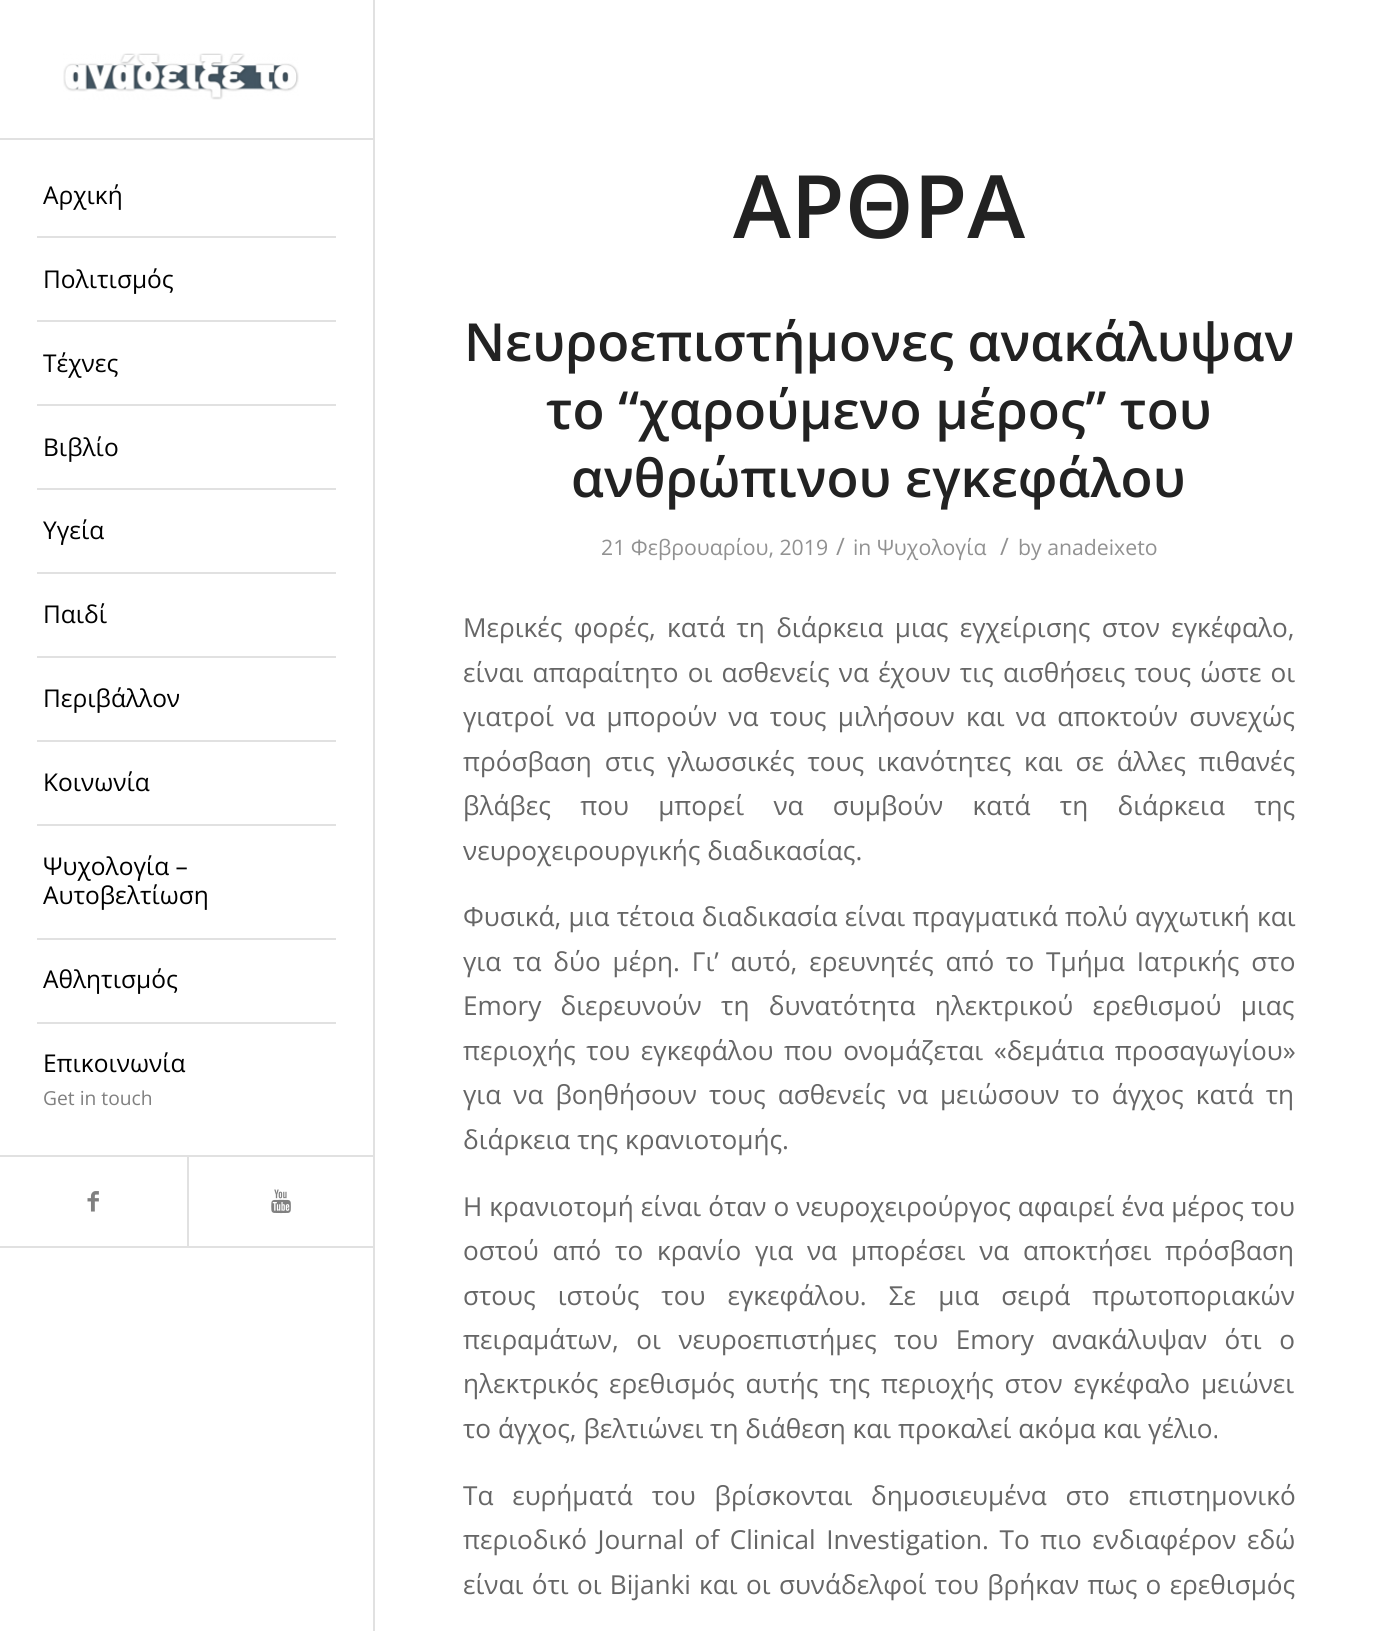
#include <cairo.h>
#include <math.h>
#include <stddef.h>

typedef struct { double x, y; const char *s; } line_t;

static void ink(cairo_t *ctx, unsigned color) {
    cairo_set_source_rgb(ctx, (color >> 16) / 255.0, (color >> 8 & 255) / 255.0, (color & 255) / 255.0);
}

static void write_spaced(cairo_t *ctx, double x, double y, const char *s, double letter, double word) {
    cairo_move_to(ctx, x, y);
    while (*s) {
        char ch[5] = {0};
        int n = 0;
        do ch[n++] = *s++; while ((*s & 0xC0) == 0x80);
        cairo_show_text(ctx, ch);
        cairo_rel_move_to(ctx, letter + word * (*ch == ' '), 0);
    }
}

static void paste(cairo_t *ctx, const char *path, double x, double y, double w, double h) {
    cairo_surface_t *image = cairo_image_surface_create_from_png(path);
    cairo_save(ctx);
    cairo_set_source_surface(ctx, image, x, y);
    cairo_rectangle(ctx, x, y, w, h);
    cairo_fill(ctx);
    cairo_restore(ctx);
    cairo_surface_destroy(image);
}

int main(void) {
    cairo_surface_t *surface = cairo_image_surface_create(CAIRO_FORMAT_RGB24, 1381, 1631);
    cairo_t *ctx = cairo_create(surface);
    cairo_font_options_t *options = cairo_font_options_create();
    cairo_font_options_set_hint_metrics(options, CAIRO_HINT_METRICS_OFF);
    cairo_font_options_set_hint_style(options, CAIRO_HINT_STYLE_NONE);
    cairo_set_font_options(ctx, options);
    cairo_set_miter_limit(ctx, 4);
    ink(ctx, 0xFFFFFF);
    cairo_paint(ctx);
    ink(ctx, 0xE1E1E1);
    cairo_rectangle(ctx, 0, 1246, 373, 2);
    cairo_fill(ctx);
    cairo_rectangle(ctx, 0, 138, 373, 2);
    cairo_fill(ctx);
    paste(ctx, "media/1.png", 63, 53, 236, 47);
    cairo_rectangle(ctx, 37, 236, 299, 2);
    cairo_fill(ctx);
    cairo_select_font_face(ctx, "Open Sans", CAIRO_FONT_SLANT_NORMAL, CAIRO_FONT_WEIGHT_NORMAL);
    cairo_set_font_size(ctx, 24.5);
    ink(ctx, 0x000000);
    cairo_move_to(ctx, 43, 204);
    cairo_show_text(ctx, "Αρχική");
    ink(ctx, 0xE1E1E1);
    cairo_rectangle(ctx, 37, 320, 299, 2);
    cairo_fill(ctx);
    ink(ctx, 0x000000);
    cairo_move_to(ctx, 43, 288);
    cairo_show_text(ctx, "Πολιτισμός");
    ink(ctx, 0xE1E1E1);
    cairo_rectangle(ctx, 37, 404, 299, 2);
    cairo_fill(ctx);
    ink(ctx, 0x000000);
    cairo_move_to(ctx, 43, 372);
    cairo_show_text(ctx, "Τέχνες");
    ink(ctx, 0xE1E1E1);
    cairo_rectangle(ctx, 37, 488, 299, 2);
    cairo_fill(ctx);
    ink(ctx, 0x000000);
    cairo_move_to(ctx, 43, 456);
    cairo_show_text(ctx, "Βιβλίο");
    ink(ctx, 0xE1E1E1);
    cairo_rectangle(ctx, 37, 572, 299, 2);
    cairo_fill(ctx);
    ink(ctx, 0x000000);
    cairo_move_to(ctx, 43, 539);
    cairo_show_text(ctx, "Υγεία");
    ink(ctx, 0xE1E1E1);
    cairo_rectangle(ctx, 37, 656, 299, 2);
    cairo_fill(ctx);
    ink(ctx, 0x000000);
    cairo_move_to(ctx, 43, 623);
    cairo_show_text(ctx, "Παιδί");
    ink(ctx, 0xE1E1E1);
    cairo_rectangle(ctx, 37, 740, 299, 2);
    cairo_fill(ctx);
    ink(ctx, 0x000000);
    cairo_move_to(ctx, 43, 707);
    cairo_show_text(ctx, "Περιβάλλον");
    ink(ctx, 0xE1E1E1);
    cairo_rectangle(ctx, 37, 824, 299, 2);
    cairo_fill(ctx);
    ink(ctx, 0x000000);
    cairo_move_to(ctx, 43, 791);
    cairo_show_text(ctx, "Κοινωνία");
    ink(ctx, 0xE1E1E1);
    cairo_rectangle(ctx, 37, 938, 299, 2);
    cairo_fill(ctx);
    ink(ctx, 0x000000);
    cairo_move_to(ctx, 43, 875);
    cairo_show_text(ctx, "Ψυχολογία –");
    cairo_move_to(ctx, 43, 904);
    cairo_show_text(ctx, "Αυτοβελτίωση");
    ink(ctx, 0xE1E1E1);
    cairo_rectangle(ctx, 37, 1022, 299, 2);
    cairo_fill(ctx);
    ink(ctx, 0x000000);
    cairo_move_to(ctx, 43, 988);
    cairo_show_text(ctx, "Αθλητισμός");
    cairo_move_to(ctx, 43, 1072);
    cairo_show_text(ctx, "Επικοινωνία");
    cairo_set_font_size(ctx, 19.25);
    ink(ctx, 0x808080);
    cairo_move_to(ctx, 43, 1105);
    cairo_show_text(ctx, "Get in touch");
    ink(ctx, 0xE1E1E1);
    cairo_rectangle(ctx, 0, 1155, 373, 2);
    cairo_fill(ctx);
    paste(ctx, "media/2.png", 87, 1191, 12, 21);
    cairo_rectangle(ctx, 187, 1157, 2, 89);
    cairo_fill(ctx);
    paste(ctx, "media/3.png", 271, 1189, 20, 25);
    cairo_rectangle(ctx, 373, 0, 2, 1631);
    cairo_fill(ctx);
    cairo_select_font_face(ctx, "Open Sans SemiBold", CAIRO_FONT_SLANT_NORMAL, CAIRO_FONT_WEIGHT_NORMAL);
    cairo_set_font_size(ctx, 87.5);
    ink(ctx, 0x222222);
    cairo_move_to(ctx, 733, 238);
    cairo_show_text(ctx, "ΑΡΘΡΑ");
    cairo_set_font_size(ctx, 52.5);
    {
        static const line_t items[] = {
            {464, 361, "Νευροεπιστήμονες ανακάλυψαν"},
            {546, 429, "το “χαρούμενο μέρος” του"},
            {571, 497, "ανθρώπινου εγκεφάλου"},
        };
        for (size_t i = 0; i < sizeof items / sizeof *items; i++) {
            cairo_move_to(ctx, items[i].x, items[i].y);
            cairo_show_text(ctx, items[i].s);
        }
    }
    cairo_select_font_face(ctx, "Open Sans", CAIRO_FONT_SLANT_NORMAL, CAIRO_FONT_WEIGHT_NORMAL);
    cairo_set_font_size(ctx, 21.25);
    ink(ctx, 0x919191);
    cairo_move_to(ctx, 601, 555);
    cairo_show_text(ctx, "21 Φεβρουαρίου, 2019");
    cairo_set_font_size(ctx, 24);
    cairo_move_to(ctx, 836, 555);
    cairo_show_text(ctx, "/");
    cairo_set_font_size(ctx, 21.25);
    cairo_move_to(ctx, 853, 555);
    cairo_show_text(ctx, "in Ψυχολογία");
    cairo_set_font_size(ctx, 24);
    cairo_move_to(ctx, 1000, 555);
    cairo_show_text(ctx, "/");
    cairo_set_font_size(ctx, 21.25);
    cairo_move_to(ctx, 1018, 555);
    cairo_show_text(ctx, "by anadeixeto");
    cairo_set_font_size(ctx, 26.15);
    ink(ctx, 0x666666);
    write_spaced(ctx, 463, 637, "Μερικές φορές, κατά τη διάρκεια μιας εγχείρισης στον εγκέφαλο,", 0, 4.5);
    write_spaced(ctx, 463, 682, "είναι απαραίτητο οι ασθενείς να έχουν τις αισθήσεις τους ώστε οι", 0, 2.4);
    write_spaced(ctx, 463, 726, "γιατροί να μπορούν να τους μιλήσουν και να αποκτούν συνεχώς", 0, 4.5);
    write_spaced(ctx, 463, 771, "πρόσβαση στις γλωσσικές τους ικανότητες και σε άλλες πιθανές", 0, 6);
    write_spaced(ctx, 463, 815, "βλάβες που μπορεί να συμβούν κατά τη διάρκεια της", 0, 22.5);
    cairo_move_to(ctx, 463, 860);
    cairo_show_text(ctx, "νευροχειρουργικής διαδικασίας.");
    write_spaced(ctx, 463, 926, "Φυσικά, μια τέτοια διαδικασία είναι πραγματικά πολύ αγχωτική και", 0, 0.5);
    write_spaced(ctx, 463, 971, "για τα δύο μέρη. Γι’ αυτό, ερευνητές από το Τμήμα Ιατρικής στο", 0, 5.1);
    write_spaced(ctx, 463, 1015, "Emory διερευνούν τη δυνατότητα ηλεκτρικού ερεθισμού μιας", 0, 12.5);
    write_spaced(ctx, 463, 1060, "περιοχής του εγκεφάλου που ονομάζεται «δεμάτια προσαγωγίου»", 0, 3.75);
    write_spaced(ctx, 463, 1104, "για να βοηθήσουν τους ασθενείς να μειώσουν το άγχος κατά τη", 0, 5.25);
    cairo_move_to(ctx, 463, 1149);
    cairo_show_text(ctx, "διάρκεια της κρανιοτομής.");
    write_spaced(ctx, 463, 1216, "Η κρανιοτομή είναι όταν ο νευροχειρούργος αφαιρεί ένα μέρος του", 0, 0.25);
    write_spaced(ctx, 463, 1260, "οστού από το κρανίο για να μπορέσει να αποκτήσει πρόσβαση", 0, 7);
    write_spaced(ctx, 463, 1305, "στους ιστούς του εγκεφάλου. Σε μια σειρά πρωτοποριακών", 0, 15.25);
    write_spaced(ctx, 463, 1349, "πειραμάτων, οι νευροεπιστήμες του Emory ανακάλυψαν ότι ο", 0, 10.75);
    write_spaced(ctx, 463, 1393, "ηλεκτρικός ερεθισμός αυτής της περιοχής στον εγκέφαλο μειώνει", 0, 4);
    cairo_move_to(ctx, 463, 1438);
    cairo_show_text(ctx, "το άγχος, βελτιώνει τη διάθεση και προκαλεί ακόμα και γέλιο.");
    write_spaced(ctx, 463, 1505, "Τα ευρήματά του βρίσκονται δημοσιευμένα στο επιστημονικό", 0, 12);
    write_spaced(ctx, 463, 1549, "περιοδικό Journal of Clinical Investigation. Το πιο ενδιαφέρον εδώ", 0, 3.75);
    write_spaced(ctx, 463, 1594, "είναι ότι οι Bijanki και οι συνάδελφοί του βρήκαν πως ο ερεθισμός", 0, 1.5);
    cairo_surface_write_to_png(surface, "image.png");
    cairo_font_options_destroy(options);
    cairo_destroy(ctx);
    cairo_surface_destroy(surface);
    return 0;
}
